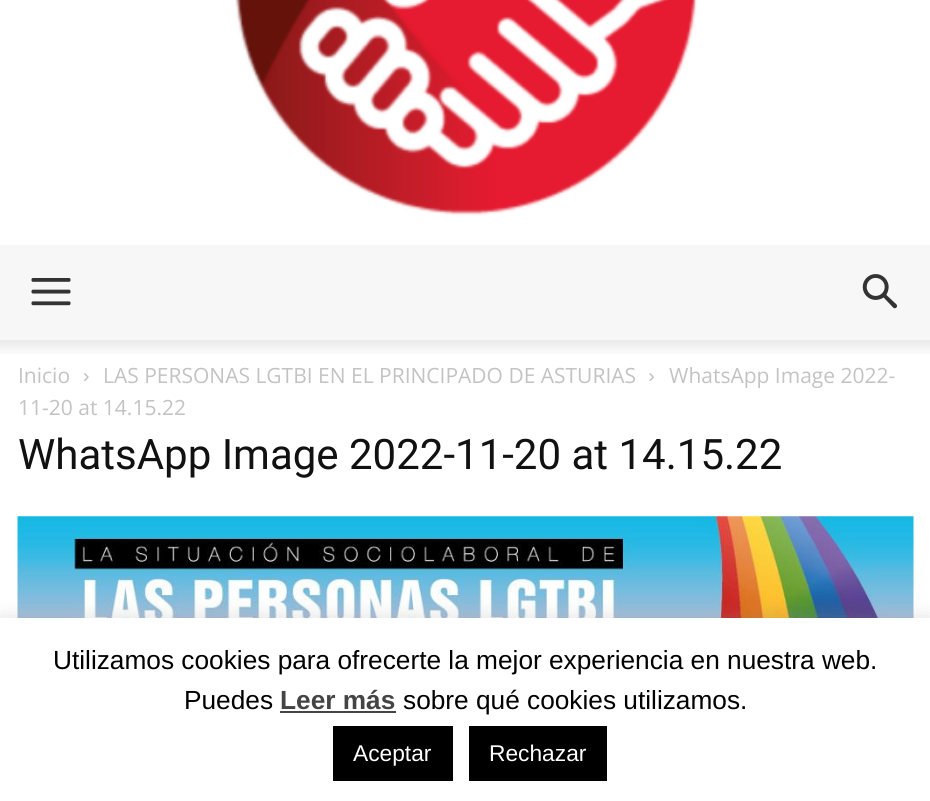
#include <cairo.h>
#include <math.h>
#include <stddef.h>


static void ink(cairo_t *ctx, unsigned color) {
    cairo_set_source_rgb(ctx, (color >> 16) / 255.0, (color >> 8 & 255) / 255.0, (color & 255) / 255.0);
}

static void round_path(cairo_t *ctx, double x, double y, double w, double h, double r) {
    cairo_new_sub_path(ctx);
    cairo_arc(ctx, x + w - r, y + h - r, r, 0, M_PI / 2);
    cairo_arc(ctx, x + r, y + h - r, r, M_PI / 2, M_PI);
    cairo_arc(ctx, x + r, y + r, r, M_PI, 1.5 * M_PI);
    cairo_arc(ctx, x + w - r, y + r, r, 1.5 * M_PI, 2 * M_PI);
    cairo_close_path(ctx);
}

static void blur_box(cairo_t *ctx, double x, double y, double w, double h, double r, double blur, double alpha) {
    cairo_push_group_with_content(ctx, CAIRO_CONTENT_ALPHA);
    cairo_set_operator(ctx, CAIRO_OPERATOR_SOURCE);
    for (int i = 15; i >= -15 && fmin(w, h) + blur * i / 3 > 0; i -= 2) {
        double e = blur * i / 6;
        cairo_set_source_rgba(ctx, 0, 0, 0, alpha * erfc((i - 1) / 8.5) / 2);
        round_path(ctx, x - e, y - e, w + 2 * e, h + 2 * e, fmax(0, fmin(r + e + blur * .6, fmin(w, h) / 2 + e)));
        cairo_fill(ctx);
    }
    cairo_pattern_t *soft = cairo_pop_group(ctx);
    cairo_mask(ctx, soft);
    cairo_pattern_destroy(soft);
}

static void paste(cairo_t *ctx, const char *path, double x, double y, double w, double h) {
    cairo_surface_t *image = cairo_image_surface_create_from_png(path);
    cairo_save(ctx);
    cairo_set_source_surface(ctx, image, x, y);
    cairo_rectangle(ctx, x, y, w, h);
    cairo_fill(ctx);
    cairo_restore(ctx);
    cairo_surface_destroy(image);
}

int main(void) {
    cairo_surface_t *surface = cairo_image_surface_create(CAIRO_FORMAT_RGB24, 930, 801);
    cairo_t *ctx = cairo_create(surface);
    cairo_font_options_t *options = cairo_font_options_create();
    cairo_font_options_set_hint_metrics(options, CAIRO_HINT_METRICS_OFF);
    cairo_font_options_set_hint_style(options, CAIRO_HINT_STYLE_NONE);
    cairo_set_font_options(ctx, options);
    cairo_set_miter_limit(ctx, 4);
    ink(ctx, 0xFFFFFF);
    cairo_paint(ctx);
    paste(ctx, "media/1.png", 235, 0, 462, 216);
    ink(ctx, 0xF7F7F7);
    cairo_rectangle(ctx, 0, 245, 930, 95);
    cairo_fill(ctx);
    paste(ctx, "media/2.png", 31, 278, 40, 28);
    paste(ctx, "media/3.png", 862, 274, 35, 35);
    paste(ctx, "media/4.png", 0, 340, 930, 14);
    cairo_select_font_face(ctx, "Open Sans", CAIRO_FONT_SLANT_NORMAL, CAIRO_FONT_WEIGHT_NORMAL);
    cairo_set_font_size(ctx, 21);
    ink(ctx, 0xC3C3C3);
    cairo_move_to(ctx, 18, 383);
    cairo_show_text(ctx, "Inicio");
    paste(ctx, "media/5.png", 84, 373, 5, 9);
    cairo_move_to(ctx, 103, 383);
    cairo_show_text(ctx, "LAS PERSONAS LGTBI EN EL PRINCIPADO DE ASTURIAS");
    paste(ctx, "media/6.png", 649, 373, 5, 8);
    cairo_move_to(ctx, 669, 383);
    cairo_show_text(ctx, "WhatsApp Image 2022-");
    cairo_move_to(ctx, 18, 415);
    cairo_show_text(ctx, "11-20 at 14.15.22");
    cairo_select_font_face(ctx, "Roboto", CAIRO_FONT_SLANT_NORMAL, CAIRO_FONT_WEIGHT_NORMAL);
    cairo_set_font_size(ctx, 42);
    ink(ctx, 0x111111);
    cairo_move_to(ctx, 18, 469);
    cairo_show_text(ctx, "WhatsApp Image 2022-11-20 at 14.15.22");
    paste(ctx, "media/7.png", 17, 516, 897, 102);
    ink(ctx, 0xACABAB);
    blur_box(ctx, 0, 616, 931, 184, 0, 9, 0.3);
    ink(ctx, 0xFFFFFF);
    cairo_rectangle(ctx, 0, 618, 930, 183);
    cairo_fill(ctx);
    cairo_select_font_face(ctx, "Liberation Sans", CAIRO_FONT_SLANT_NORMAL, CAIRO_FONT_WEIGHT_NORMAL);
    cairo_set_font_size(ctx, 26.25);
    ink(ctx, 0x000000);
    cairo_move_to(ctx, 53, 669);
    cairo_show_text(ctx, "Utilizamos cookies para ofrecerte la mejor experiencia en nuestra web.");
    cairo_move_to(ctx, 184, 709);
    cairo_show_text(ctx, "Puedes");
    cairo_select_font_face(ctx, "Liberation Sans", CAIRO_FONT_SLANT_NORMAL, CAIRO_FONT_WEIGHT_BOLD);
    ink(ctx, 0x444444);
    cairo_move_to(ctx, 280, 709);
    cairo_show_text(ctx, "Leer más");
    cairo_rectangle(ctx, 280, 711, 116, 2);
    cairo_fill(ctx);
    cairo_select_font_face(ctx, "Liberation Sans", CAIRO_FONT_SLANT_NORMAL, CAIRO_FONT_WEIGHT_NORMAL);
    ink(ctx, 0x000000);
    cairo_move_to(ctx, 403, 709);
    cairo_show_text(ctx, "sobre qué cookies utilizamos.");
    cairo_rectangle(ctx, 333, 726, 120, 55);
    cairo_fill(ctx);
    cairo_set_font_size(ctx, 22.75);
    ink(ctx, 0xFFFFFF);
    cairo_move_to(ctx, 353, 761);
    cairo_show_text(ctx, "Aceptar");
    ink(ctx, 0x000000);
    cairo_rectangle(ctx, 469, 726, 138, 55);
    cairo_fill(ctx);
    ink(ctx, 0xFFFFFF);
    cairo_move_to(ctx, 489, 761);
    cairo_show_text(ctx, "Rechazar");
    cairo_surface_write_to_png(surface, "image.png");
    cairo_font_options_destroy(options);
    cairo_destroy(ctx);
    cairo_surface_destroy(surface);
    return 0;
}
